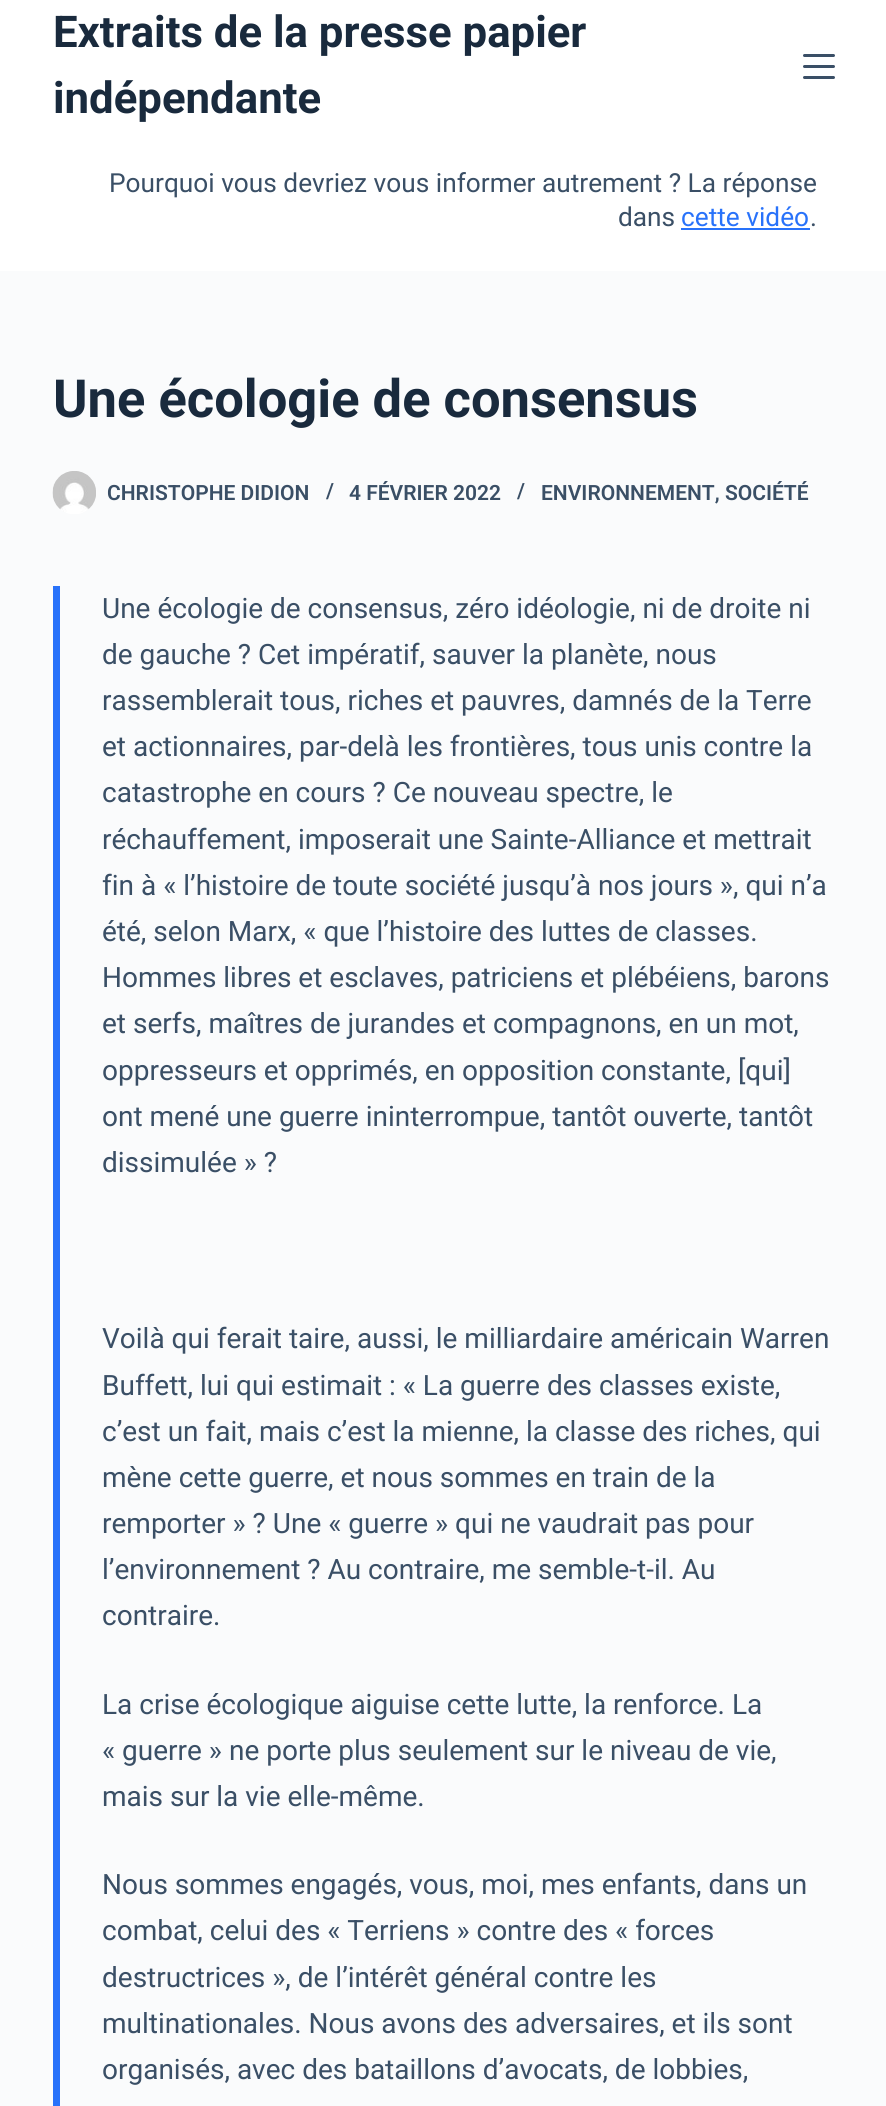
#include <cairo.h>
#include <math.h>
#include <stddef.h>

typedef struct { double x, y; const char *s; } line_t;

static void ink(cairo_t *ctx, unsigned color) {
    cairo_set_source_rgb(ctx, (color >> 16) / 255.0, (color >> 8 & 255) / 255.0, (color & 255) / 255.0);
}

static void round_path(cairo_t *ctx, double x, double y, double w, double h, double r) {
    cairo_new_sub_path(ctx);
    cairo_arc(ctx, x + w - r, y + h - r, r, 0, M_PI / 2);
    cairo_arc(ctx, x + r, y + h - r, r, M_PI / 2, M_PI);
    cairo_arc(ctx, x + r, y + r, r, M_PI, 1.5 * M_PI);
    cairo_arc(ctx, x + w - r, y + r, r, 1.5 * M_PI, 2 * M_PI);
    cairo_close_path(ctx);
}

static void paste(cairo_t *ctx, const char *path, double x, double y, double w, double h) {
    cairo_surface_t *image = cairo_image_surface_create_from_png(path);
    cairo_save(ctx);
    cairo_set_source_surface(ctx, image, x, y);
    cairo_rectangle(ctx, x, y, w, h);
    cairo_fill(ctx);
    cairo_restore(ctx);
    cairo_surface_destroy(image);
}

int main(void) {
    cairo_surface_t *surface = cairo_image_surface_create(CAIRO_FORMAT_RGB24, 886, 2106);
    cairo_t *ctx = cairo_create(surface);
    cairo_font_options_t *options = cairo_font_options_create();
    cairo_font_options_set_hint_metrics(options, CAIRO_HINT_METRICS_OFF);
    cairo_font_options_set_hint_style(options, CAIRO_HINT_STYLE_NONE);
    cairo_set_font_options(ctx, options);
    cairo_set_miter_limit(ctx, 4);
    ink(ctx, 0xFAFBFC);
    cairo_paint(ctx);
    ink(ctx, 0xFFFFFF);
    cairo_rectangle(ctx, 0, 0, 886, 271);
    cairo_fill(ctx);
    cairo_select_font_face(ctx, "Roboto", CAIRO_FONT_SLANT_NORMAL, CAIRO_FONT_WEIGHT_BOLD);
    cairo_set_font_size(ctx, 43.75);
    ink(ctx, 0x192A3D);
    cairo_move_to(ctx, 53, 47);
    cairo_show_text(ctx, "Extraits de la presse papier");
    cairo_move_to(ctx, 53, 113);
    cairo_show_text(ctx, "indépendante");
    ink(ctx, 0x3A4F66);
    round_path(ctx, 803, 54, 32, 3, 1.5);
    cairo_fill(ctx);
    round_path(ctx, 803, 65, 32, 3, 1.5);
    cairo_fill(ctx);
    round_path(ctx, 803, 76, 32, 3, 1.5);
    cairo_fill(ctx);
    cairo_select_font_face(ctx, "Roboto", CAIRO_FONT_SLANT_NORMAL, CAIRO_FONT_WEIGHT_NORMAL);
    cairo_set_font_size(ctx, 26.25);
    cairo_move_to(ctx, 109, 192);
    cairo_show_text(ctx, "Pourquoi vous devriez vous informer autrement ? La réponse");
    cairo_move_to(ctx, 618, 226);
    cairo_show_text(ctx, "dans");
    ink(ctx, 0x2872FA);
    cairo_move_to(ctx, 681, 226);
    cairo_show_text(ctx, "cette vidéo");
    cairo_rectangle(ctx, 681, 228, 129, 2);
    cairo_fill(ctx);
    ink(ctx, 0x3A4F66);
    cairo_move_to(ctx, 810, 226);
    cairo_show_text(ctx, ".");
    cairo_select_font_face(ctx, "Roboto", CAIRO_FONT_SLANT_NORMAL, CAIRO_FONT_WEIGHT_BOLD);
    cairo_set_font_size(ctx, 52.5);
    ink(ctx, 0x192A3D);
    cairo_move_to(ctx, 53, 417);
    cairo_show_text(ctx, "Une écologie de consensus");
    paste(ctx, "media/1.png", 52, 471, 44, 43);
    cairo_select_font_face(ctx, "Roboto SemiBold", CAIRO_FONT_SLANT_NORMAL, CAIRO_FONT_WEIGHT_NORMAL);
    cairo_set_font_size(ctx, 21);
    ink(ctx, 0x3A4F66);
    {
        static const line_t items[] = {
            {107, 500, "CHRISTOPHE DIDION"},
            {326, 498, "/"},
            {349, 500, "4 FÉVRIER 2022"},
            {517, 498, "/"},
            {541, 500, "ENVIRONNEMENT, SOCIÉTÉ"},
        };
        for (size_t i = 0; i < sizeof items / sizeof *items; i++) {
            cairo_move_to(ctx, items[i].x, items[i].y);
            cairo_show_text(ctx, items[i].s);
        }
    }
    ink(ctx, 0x2872FA);
    cairo_rectangle(ctx, 53, 586, 7, 1520);
    cairo_fill(ctx);
    cairo_select_font_face(ctx, "Roboto", CAIRO_FONT_SLANT_NORMAL, CAIRO_FONT_WEIGHT_NORMAL);
    cairo_set_font_size(ctx, 28);
    ink(ctx, 0x3A4F66);
    {
        static const line_t items[] = {
            {102, 618, "Une écologie de consensus, zéro idéologie, ni de droite ni"},
            {102, 664, "de gauche ? Cet impératif, sauver la planète, nous"},
            {102, 710, "rassemblerait tous, riches et pauvres, damnés de la Terre"},
            {102, 756, "et actionnaires, par-delà les frontières, tous unis contre la"},
            {102, 802, "catastrophe en cours ? Ce nouveau spectre, le"},
            {102, 849, "réchauffement, imposerait une Sainte-Alliance et mettrait"},
            {102, 895, "fin à « l’histoire de toute société jusqu’à nos jours », qui n’a"},
            {102, 941, "été, selon Marx, « que l’histoire des luttes de classes."},
            {102, 987, "Hommes libres et esclaves, patriciens et plébéiens, barons"},
            {102, 1033, "et serfs, maîtres de jurandes et compagnons, en un mot,"},
            {102, 1080, "oppresseurs et opprimés, en opposition constante, [qui]"},
            {102, 1126, "ont mené une guerre ininterrompue, tantôt ouverte, tantôt"},
            {102, 1172, "dissimulée » ?"},
            {102, 1348, "Voilà qui ferait taire, aussi, le milliardaire américain Warren"},
            {102, 1395, "Buffett, lui qui estimait : « La guerre des classes existe,"},
            {102, 1441, "c’est un fait, mais c’est la mienne, la classe des riches, qui"},
            {102, 1487, "mène cette guerre, et nous sommes en train de la"},
            {102, 1533, "remporter » ? Une « guerre » qui ne vaudrait pas pour"},
            {102, 1579, "l’environnement ? Au contraire, me semble-t-il. Au"},
            {102, 1625, "contraire."},
            {102, 1714, "La crise écologique aiguise cette lutte, la renforce. La"},
            {102, 1760, "« guerre » ne porte plus seulement sur le niveau de vie,"},
            {102, 1806, "mais sur la vie elle-même."},
            {102, 1894, "Nous sommes engagés, vous, moi, mes enfants, dans un"},
            {102, 1940, "combat, celui des « Terriens » contre des « forces"},
            {102, 1987, "destructrices », de l’intérêt général contre les"},
            {102, 2033, "multinationales. Nous avons des adversaires, et ils sont"},
            {102, 2079, "organisés, avec des bataillons d’avocats, de lobbies,"},
        };
        for (size_t i = 0; i < sizeof items / sizeof *items; i++) {
            cairo_move_to(ctx, items[i].x, items[i].y);
            cairo_show_text(ctx, items[i].s);
        }
    }
    cairo_surface_write_to_png(surface, "image.png");
    cairo_font_options_destroy(options);
    cairo_destroy(ctx);
    cairo_surface_destroy(surface);
    return 0;
}
